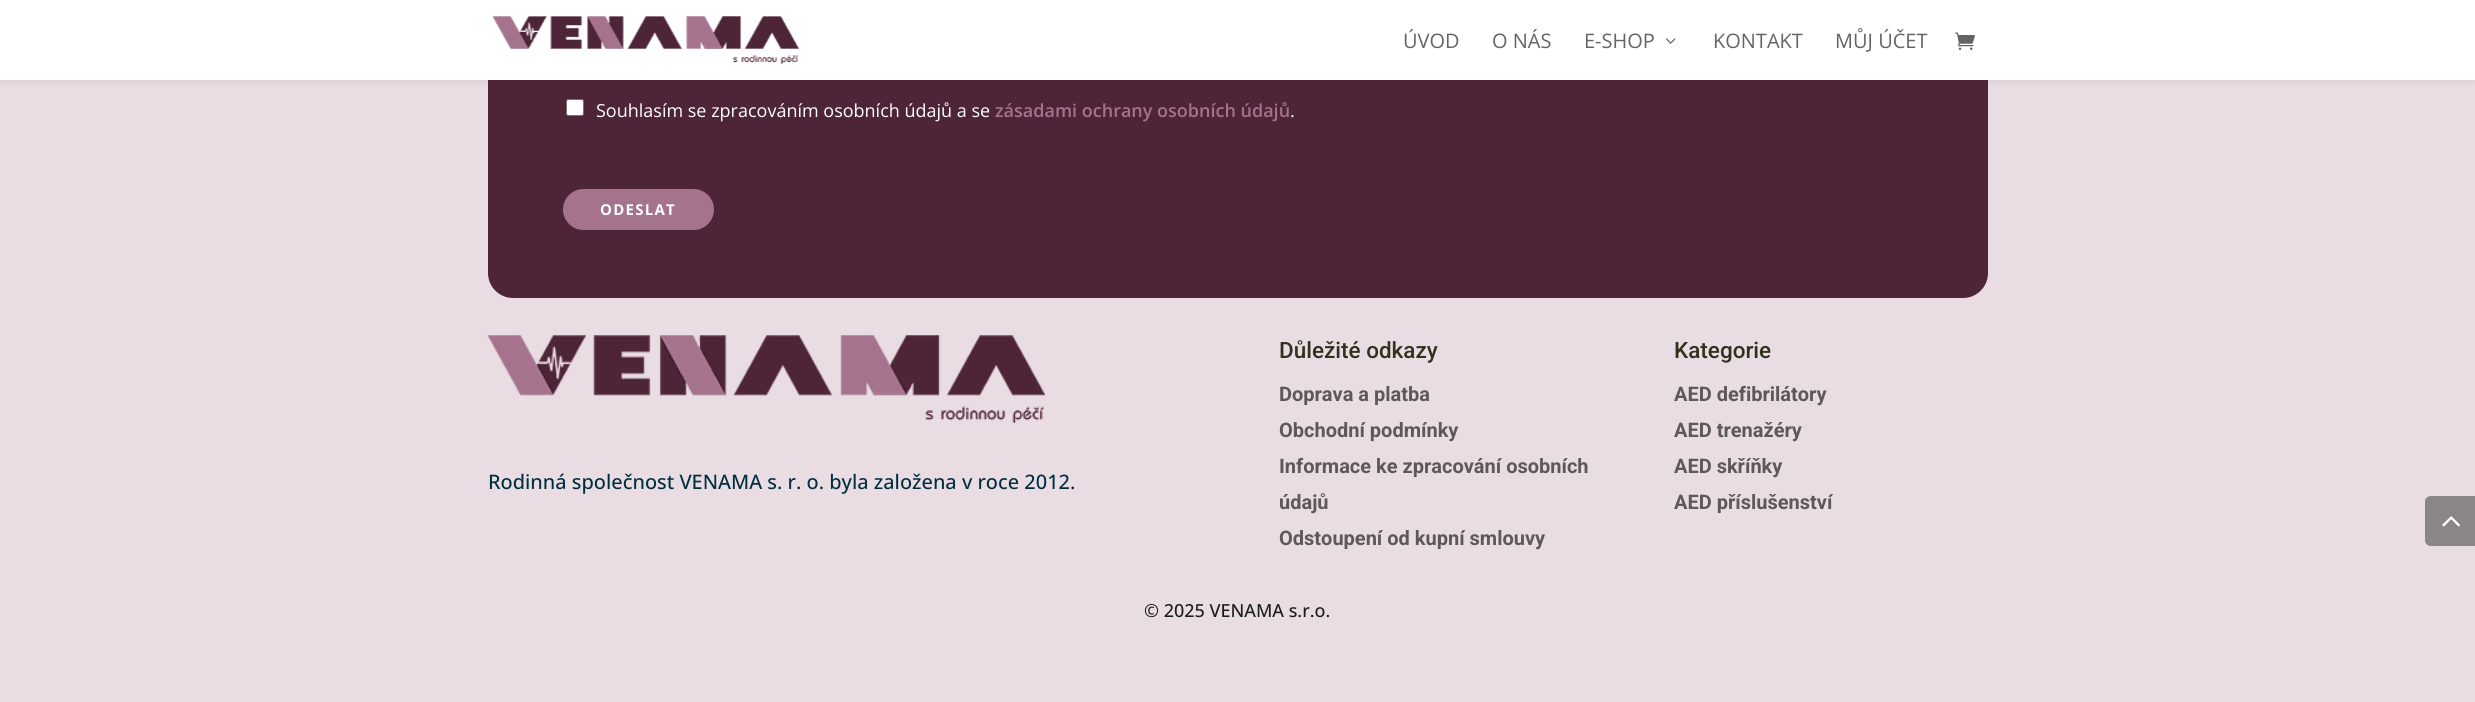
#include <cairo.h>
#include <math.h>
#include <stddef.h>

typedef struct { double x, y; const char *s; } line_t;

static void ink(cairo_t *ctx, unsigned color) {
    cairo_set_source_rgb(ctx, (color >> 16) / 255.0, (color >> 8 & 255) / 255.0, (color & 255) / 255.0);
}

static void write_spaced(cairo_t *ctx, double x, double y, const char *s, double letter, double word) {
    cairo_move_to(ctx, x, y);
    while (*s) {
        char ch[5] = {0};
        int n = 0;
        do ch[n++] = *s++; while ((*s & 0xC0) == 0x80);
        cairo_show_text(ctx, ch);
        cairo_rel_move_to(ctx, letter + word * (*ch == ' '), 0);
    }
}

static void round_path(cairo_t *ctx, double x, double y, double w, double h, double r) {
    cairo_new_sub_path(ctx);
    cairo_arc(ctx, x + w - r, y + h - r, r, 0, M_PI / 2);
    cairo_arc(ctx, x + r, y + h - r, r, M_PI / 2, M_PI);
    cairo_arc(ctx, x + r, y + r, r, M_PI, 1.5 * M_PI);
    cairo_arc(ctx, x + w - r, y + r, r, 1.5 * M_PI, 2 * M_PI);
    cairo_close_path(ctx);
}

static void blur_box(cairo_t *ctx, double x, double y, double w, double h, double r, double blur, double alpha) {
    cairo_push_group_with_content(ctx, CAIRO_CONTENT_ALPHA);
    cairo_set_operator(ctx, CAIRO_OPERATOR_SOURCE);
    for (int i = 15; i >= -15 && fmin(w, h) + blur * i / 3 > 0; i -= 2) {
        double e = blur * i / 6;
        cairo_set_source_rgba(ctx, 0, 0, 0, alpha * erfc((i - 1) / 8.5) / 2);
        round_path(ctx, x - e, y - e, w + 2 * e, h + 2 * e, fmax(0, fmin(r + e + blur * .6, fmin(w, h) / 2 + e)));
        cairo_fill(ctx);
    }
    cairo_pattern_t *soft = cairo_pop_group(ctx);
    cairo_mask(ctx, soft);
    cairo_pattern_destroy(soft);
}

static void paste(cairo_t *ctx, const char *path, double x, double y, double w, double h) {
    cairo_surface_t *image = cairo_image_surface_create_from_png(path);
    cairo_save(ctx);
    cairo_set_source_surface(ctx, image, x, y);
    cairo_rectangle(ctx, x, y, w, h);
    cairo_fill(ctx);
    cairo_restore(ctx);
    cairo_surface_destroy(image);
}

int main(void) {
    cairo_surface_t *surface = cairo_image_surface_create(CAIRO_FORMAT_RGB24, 2475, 702);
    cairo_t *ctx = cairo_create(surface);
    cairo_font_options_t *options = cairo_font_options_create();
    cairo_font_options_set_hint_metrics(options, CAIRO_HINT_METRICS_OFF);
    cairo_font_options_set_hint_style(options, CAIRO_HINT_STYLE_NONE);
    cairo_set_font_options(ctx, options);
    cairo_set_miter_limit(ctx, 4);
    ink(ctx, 0xE9DDE3);
    cairo_paint(ctx);
    ink(ctx, 0x4E2538);
    round_path(ctx, 488, -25, 1500, 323, 25);
    cairo_fill(ctx);
    ink(ctx, 0x000000);
    blur_box(ctx, 0, 0, 2475, 80, 0, 4.5, 0.1);
    ink(ctx, 0xFFFFFF);
    cairo_rectangle(ctx, 0, 0, 2475, 80);
    cairo_fill(ctx);
    paste(ctx, "media/1.png", 492, 16, 308, 48);
    cairo_select_font_face(ctx, "Open Sans", CAIRO_FONT_SLANT_NORMAL, CAIRO_FONT_WEIGHT_NORMAL);
    cairo_set_font_size(ctx, 20);
    ink(ctx, 0x646464);
    {
        static const line_t items[] = {
            {1403, 48, "ÚVOD"},
            {1492, 48, "O NÁS"},
            {1584, 48, "E-SHOP"},
        };
        for (size_t i = 0; i < sizeof items / sizeof *items; i++) {
            cairo_move_to(ctx, items[i].x, items[i].y);
            cairo_show_text(ctx, items[i].s);
        }
    }
    paste(ctx, "media/2.png", 1666, 38, 10, 6);
    cairo_move_to(ctx, 1713, 48);
    cairo_show_text(ctx, "KONTAKT");
    cairo_move_to(ctx, 1835, 48);
    cairo_show_text(ctx, "MŮJ ÚČET");
    paste(ctx, "media/3.png", 1955, 32, 20, 18);
    ink(ctx, 0xFFFFFF);
    round_path(ctx, 566.5, 99.5, 17, 16, 2);
    cairo_fill_preserve(ctx);
    ink(ctx, 0x767676);
    cairo_set_line_width(ctx, 1);
    cairo_stroke(ctx);
    cairo_set_font_size(ctx, 18);
    ink(ctx, 0xFFFFFF);
    cairo_move_to(ctx, 596, 117);
    cairo_show_text(ctx, "Souhlasím se zpracováním osobních údajů a se");
    cairo_select_font_face(ctx, "Open Sans SemiBold", CAIRO_FONT_SLANT_NORMAL, CAIRO_FONT_WEIGHT_NORMAL);
    ink(ctx, 0xA5738E);
    cairo_move_to(ctx, 995, 117);
    cairo_show_text(ctx, "zásadami ochrany osobních údajů");
    cairo_select_font_face(ctx, "Open Sans", CAIRO_FONT_SLANT_NORMAL, CAIRO_FONT_WEIGHT_NORMAL);
    ink(ctx, 0xFFFFFF);
    cairo_move_to(ctx, 1290, 117);
    cairo_show_text(ctx, ".");
    ink(ctx, 0xA5738E);
    round_path(ctx, 563, 189, 151, 41, 20.5);
    cairo_fill(ctx);
    cairo_select_font_face(ctx, "Open Sans", CAIRO_FONT_SLANT_NORMAL, CAIRO_FONT_WEIGHT_BOLD);
    cairo_set_font_size(ctx, 15);
    ink(ctx, 0xFFFFFF);
    write_spaced(ctx, 600, 215, "ODESLAT", 1.25, 0);
    paste(ctx, "media/4.png", 487, 335, 558, 88);
    cairo_select_font_face(ctx, "Open Sans Medium", CAIRO_FONT_SLANT_NORMAL, CAIRO_FONT_WEIGHT_NORMAL);
    cairo_set_font_size(ctx, 20);
    ink(ctx, 0x002E3F);
    cairo_move_to(ctx, 488, 489);
    cairo_show_text(ctx, "Rodinná společnost VENAMA s. r. o. byla založena v roce 2012.");
    cairo_select_font_face(ctx, "Roboto Medium", CAIRO_FONT_SLANT_NORMAL, CAIRO_FONT_WEIGHT_NORMAL);
    cairo_set_font_size(ctx, 22.5);
    ink(ctx, 0x32311E);
    cairo_move_to(ctx, 1279, 358);
    cairo_show_text(ctx, "Důležité odkazy");
    cairo_select_font_face(ctx, "Roboto", CAIRO_FONT_SLANT_NORMAL, CAIRO_FONT_WEIGHT_BOLD);
    cairo_set_font_size(ctx, 20);
    ink(ctx, 0x5D585B);
    {
        static const line_t items[] = {
            {1279, 401, "Doprava a platba"},
            {1279, 437, "Obchodní podmínky"},
            {1279, 473, "Informace ke zpracování osobních"},
            {1279, 509, "údajů"},
            {1279, 545, "Odstoupení od kupní smlouvy"},
        };
        for (size_t i = 0; i < sizeof items / sizeof *items; i++) {
            cairo_move_to(ctx, items[i].x, items[i].y);
            cairo_show_text(ctx, items[i].s);
        }
    }
    cairo_select_font_face(ctx, "Roboto Medium", CAIRO_FONT_SLANT_NORMAL, CAIRO_FONT_WEIGHT_NORMAL);
    cairo_set_font_size(ctx, 22.5);
    ink(ctx, 0x32311E);
    cairo_move_to(ctx, 1674, 358);
    cairo_show_text(ctx, "Kategorie");
    cairo_select_font_face(ctx, "Roboto", CAIRO_FONT_SLANT_NORMAL, CAIRO_FONT_WEIGHT_BOLD);
    cairo_set_font_size(ctx, 20);
    ink(ctx, 0x5D585B);
    {
        static const line_t items[] = {
            {1674, 401, "AED defibrilátory"},
            {1674, 437, "AED trenažéry"},
            {1674, 473, "AED skříňky"},
            {1674, 509, "AED příslušenství"},
        };
        for (size_t i = 0; i < sizeof items / sizeof *items; i++) {
            cairo_move_to(ctx, items[i].x, items[i].y);
            cairo_show_text(ctx, items[i].s);
        }
    }
    cairo_select_font_face(ctx, "Open Sans Medium", CAIRO_FONT_SLANT_NORMAL, CAIRO_FONT_WEIGHT_NORMAL);
    cairo_set_font_size(ctx, 18);
    ink(ctx, 0x1C1C1C);
    cairo_move_to(ctx, 1144, 617);
    cairo_show_text(ctx, "© 2025 VENAMA s.r.o.");
    ink(ctx, 0x8C8588);
    cairo_new_path(ctx);
    cairo_move_to(ctx, 2431, 496);
    cairo_line_to(ctx, 2475, 496);
    cairo_line_to(ctx, 2475, 546);
    cairo_line_to(ctx, 2431, 546);
    cairo_curve_to(ctx, 2427.5, 546, 2425, 543.5, 2425, 540);
    cairo_line_to(ctx, 2425, 502);
    cairo_curve_to(ctx, 2425, 498.5, 2427.5, 496, 2431, 496);
    cairo_close_path(ctx);
    cairo_fill(ctx);
    paste(ctx, "media/5.png", 2442, 516, 18, 11);
    cairo_surface_write_to_png(surface, "image.png");
    cairo_font_options_destroy(options);
    cairo_destroy(ctx);
    cairo_surface_destroy(surface);
    return 0;
}
